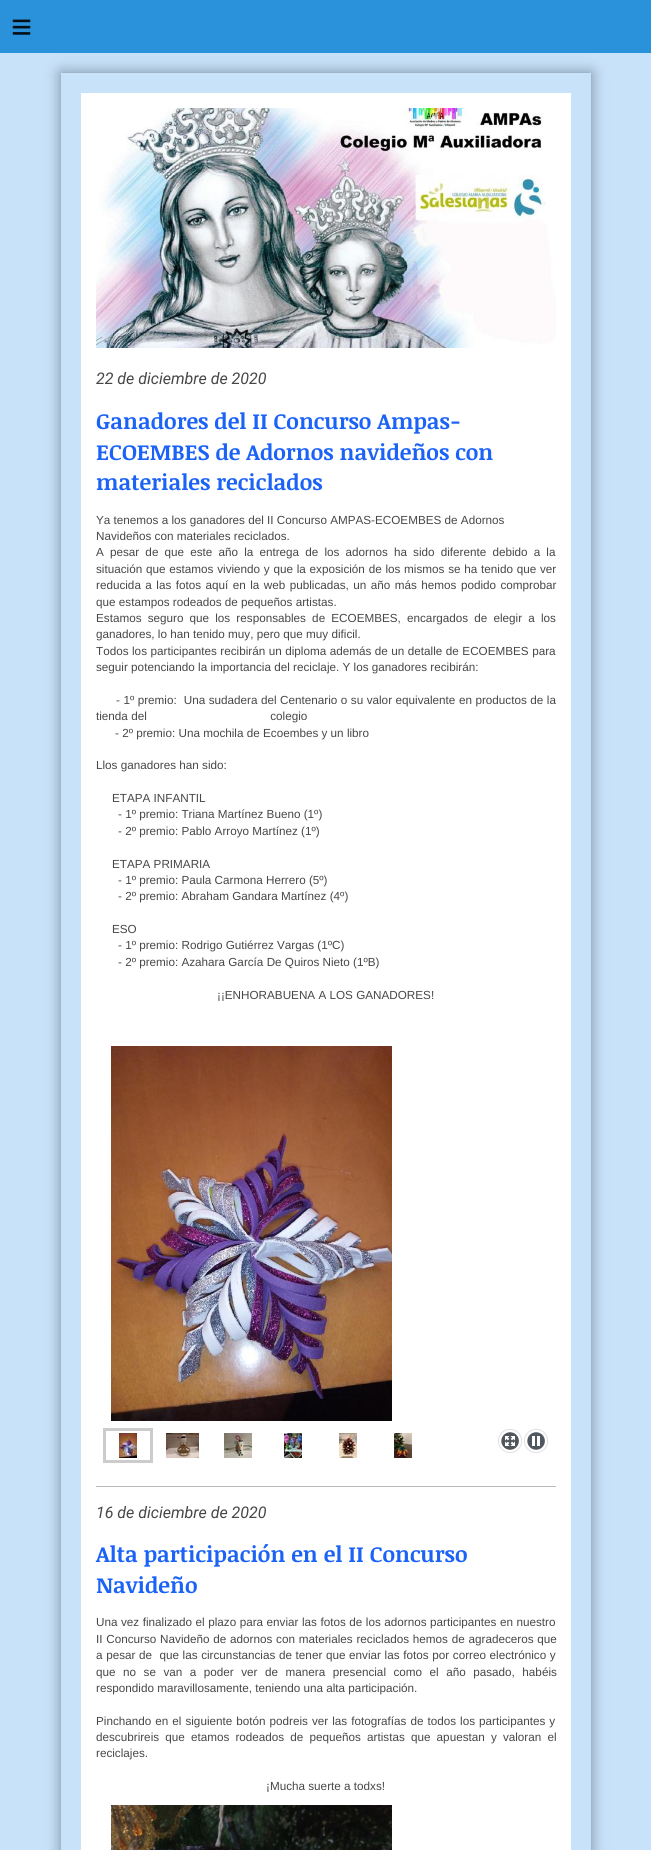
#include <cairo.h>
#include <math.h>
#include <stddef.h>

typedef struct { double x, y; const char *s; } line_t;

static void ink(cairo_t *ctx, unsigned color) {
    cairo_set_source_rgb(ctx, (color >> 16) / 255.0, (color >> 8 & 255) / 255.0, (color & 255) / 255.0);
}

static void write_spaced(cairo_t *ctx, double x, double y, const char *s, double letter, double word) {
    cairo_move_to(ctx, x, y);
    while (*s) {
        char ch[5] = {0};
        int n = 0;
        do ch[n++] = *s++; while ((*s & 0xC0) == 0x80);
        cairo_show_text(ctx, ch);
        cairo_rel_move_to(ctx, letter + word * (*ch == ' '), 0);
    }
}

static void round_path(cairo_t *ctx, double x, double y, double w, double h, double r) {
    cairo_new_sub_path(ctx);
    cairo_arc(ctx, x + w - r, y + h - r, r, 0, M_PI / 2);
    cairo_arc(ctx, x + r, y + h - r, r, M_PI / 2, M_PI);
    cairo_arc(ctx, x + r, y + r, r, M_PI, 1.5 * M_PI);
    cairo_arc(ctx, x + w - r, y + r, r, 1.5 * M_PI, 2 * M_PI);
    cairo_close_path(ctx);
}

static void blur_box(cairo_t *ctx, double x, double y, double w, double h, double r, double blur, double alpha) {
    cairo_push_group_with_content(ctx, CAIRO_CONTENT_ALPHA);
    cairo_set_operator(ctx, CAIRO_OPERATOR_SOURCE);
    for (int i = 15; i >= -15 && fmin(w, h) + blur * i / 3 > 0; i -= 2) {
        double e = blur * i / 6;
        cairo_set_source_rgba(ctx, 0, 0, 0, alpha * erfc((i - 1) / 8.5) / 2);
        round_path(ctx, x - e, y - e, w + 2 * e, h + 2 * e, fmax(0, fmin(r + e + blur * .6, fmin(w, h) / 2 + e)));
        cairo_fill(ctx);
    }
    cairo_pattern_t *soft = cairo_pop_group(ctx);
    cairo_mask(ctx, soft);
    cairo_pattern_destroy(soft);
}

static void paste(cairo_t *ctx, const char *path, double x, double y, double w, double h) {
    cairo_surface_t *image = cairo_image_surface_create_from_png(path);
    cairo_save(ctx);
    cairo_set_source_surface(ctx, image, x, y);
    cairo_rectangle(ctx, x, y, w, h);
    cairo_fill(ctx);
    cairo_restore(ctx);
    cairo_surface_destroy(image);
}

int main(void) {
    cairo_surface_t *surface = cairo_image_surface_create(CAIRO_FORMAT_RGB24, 651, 1850);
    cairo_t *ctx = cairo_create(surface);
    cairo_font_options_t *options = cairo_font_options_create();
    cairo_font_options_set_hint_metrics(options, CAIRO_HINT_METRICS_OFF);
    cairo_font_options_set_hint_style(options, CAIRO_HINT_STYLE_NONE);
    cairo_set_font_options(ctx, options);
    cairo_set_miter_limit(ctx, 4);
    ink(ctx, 0xC8E2FA);
    cairo_paint(ctx);
    cairo_save(ctx);
    cairo_set_fill_rule(ctx, CAIRO_FILL_RULE_EVEN_ODD);
    cairo_new_path(ctx);
    cairo_move_to(ctx, 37, 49);
    cairo_line_to(ctx, 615, 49);
    cairo_line_to(ctx, 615, 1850);
    cairo_line_to(ctx, 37, 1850);
    cairo_close_path(ctx);
    cairo_move_to(ctx, 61, 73);
    cairo_line_to(ctx, 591, 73);
    cairo_line_to(ctx, 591, 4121);
    cairo_line_to(ctx, 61, 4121);
    cairo_close_path(ctx);
    cairo_clip(ctx);
    ink(ctx, 0x000000);
    blur_box(ctx, 61, 73, 530, 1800, 0, 7.5, 0.4);
    cairo_restore(ctx);
    ink(ctx, 0x2A92DA);
    cairo_rectangle(ctx, 0, 0, 651, 53);
    cairo_fill(ctx);
    cairo_select_font_face(ctx, "Liberation Sans", CAIRO_FONT_SLANT_NORMAL, CAIRO_FONT_WEIGHT_NORMAL);
    cairo_set_font_size(ctx, 36);
    ink(ctx, 0x040F16);
    write_spaced(ctx, 11, 39, "≡", 10, 0);
    ink(ctx, 0xFFFFFF);
    cairo_rectangle(ctx, 81, 93, 490, 1757);
    cairo_fill(ctx);
    paste(ctx, "media/1.png", 96, 108, 460, 240);
    cairo_select_font_face(ctx, "Roboto", CAIRO_FONT_SLANT_ITALIC, CAIRO_FONT_WEIGHT_NORMAL);
    cairo_set_font_size(ctx, 16);
    ink(ctx, 0x474747);
    cairo_move_to(ctx, 96, 384);
    cairo_show_text(ctx, "22 de diciembre de 2020");
    cairo_select_font_face(ctx, "Noticia Text", CAIRO_FONT_SLANT_NORMAL, CAIRO_FONT_WEIGHT_BOLD);
    cairo_set_font_size(ctx, 22);
    ink(ctx, 0x1B62F7);
    {
        static const line_t items[] = {
            {96, 429, "Ganadores del II Concurso Ampas-"},
            {96, 460, "ECOEMBES de Adornos navideños con"},
            {96, 490, "materiales reciclados"},
        };
        for (size_t i = 0; i < sizeof items / sizeof *items; i++) {
            cairo_move_to(ctx, items[i].x, items[i].y);
            cairo_show_text(ctx, items[i].s);
        }
    }
    cairo_select_font_face(ctx, "Liberation Sans", CAIRO_FONT_SLANT_NORMAL, CAIRO_FONT_WEIGHT_NORMAL);
    cairo_set_font_size(ctx, 11.7);
    ink(ctx, 0x474747);
    cairo_move_to(ctx, 96, 524);
    cairo_show_text(ctx, "Ya tenemos a los ganadores del II Concurso AMPAS-ECOEMBES de Adornos");
    cairo_move_to(ctx, 96, 540);
    cairo_show_text(ctx, "Navideños con materiales reciclados.");
    write_spaced(ctx, 96, 556, "A pesar de que este año la entrega de los adornos ha sido diferente debido a la", 0, 2.9);
    write_spaced(ctx, 96, 573, "situación que estamos viviendo y que la exposición de los mismos se ha tenido que ver", 0, 0.5);
    write_spaced(ctx, 96, 589, "reducida a las fotos aquí en la web publicadas, un año más hemos podido comprobar", 0, 1.2);
    cairo_move_to(ctx, 96, 606);
    cairo_show_text(ctx, "que estampos rodeados de pequeños artistas.");
    write_spaced(ctx, 96, 622, "Estamos seguro que los responsables de ECOEMBES, encargados de elegir a los", 0, 2.9);
    cairo_move_to(ctx, 96, 638);
    cairo_show_text(ctx, "ganadores, lo han tenido muy, pero que muy dificil.");
    write_spaced(ctx, 96, 655, "Todos los participantes recibirán un diploma además de un detalle de ECOEMBES para", 0, 0.25);
    cairo_move_to(ctx, 96, 671);
    cairo_show_text(ctx, "seguir potenciando la importancia del reciclaje. Y los ganadores recibirán:");
    write_spaced(ctx, 116, 704, "- 1º premio:  Una sudadera del Centenario o su valor equivalente en productos de la", 0, 0.25);
    {
        static const line_t items[] = {
            {96, 720, "tienda del                                      colegio"},
            {115, 737, "- 2º premio: Una mochila de Ecoembes y un libro"},
            {96, 769, "Llos ganadores han sido:"},
            {112, 802, "ETAPA INFANTIL"},
            {118, 818, "- 1º premio: Triana Martínez Bueno (1º)"},
            {118, 835, "- 2º premio: Pablo Arroyo Martínez (1º)"},
            {112, 868, "ETAPA PRIMARIA"},
            {118, 884, "- 1º premio: Paula Carmona Herrero (5º)"},
            {118, 900, "- 2º premio: Abraham Gandara Martínez (4º)"},
            {112, 933, "ESO"},
            {118, 949, "- 1º premio: Rodrigo Gutiérrez Vargas (1ºC)"},
            {118, 966, "- 2º premio: Azahara García De Quiros Nieto (1ºB)"},
            {217, 999, "¡¡ENHORABUENA A LOS GANADORES!"},
        };
        for (size_t i = 0; i < sizeof items / sizeof *items; i++) {
            cairo_move_to(ctx, items[i].x, items[i].y);
            cairo_show_text(ctx, items[i].s);
        }
    }
    paste(ctx, "media/2.png", 111, 1046, 281, 375);
    cairo_rectangle(ctx, 104.5, 1429.5, 47, 32);
    ink(ctx, 0xCCCCCC);
    cairo_set_line_width(ctx, 3);
    cairo_stroke(ctx);
    paste(ctx, "media/3.png", 119, 1433, 18, 25);
    paste(ctx, "media/4.png", 166, 1433, 33, 25);
    paste(ctx, "media/5.png", 224, 1433, 28, 25);
    paste(ctx, "media/6.png", 284, 1433, 18, 25);
    paste(ctx, "media/7.png", 339, 1433, 18, 25);
    paste(ctx, "media/8.png", 394, 1433, 18, 25);
    paste(ctx, "media/9.png", 498, 1429, 25, 24);
    paste(ctx, "media/10.png", 524, 1429, 25, 24);
    ink(ctx, 0xBABABA);
    cairo_rectangle(ctx, 96, 1486, 460, 1);
    cairo_fill(ctx);
    cairo_select_font_face(ctx, "Roboto", CAIRO_FONT_SLANT_ITALIC, CAIRO_FONT_WEIGHT_NORMAL);
    cairo_set_font_size(ctx, 16);
    ink(ctx, 0x474747);
    cairo_move_to(ctx, 96, 1518);
    cairo_show_text(ctx, "16 de diciembre de 2020");
    cairo_select_font_face(ctx, "Noticia Text", CAIRO_FONT_SLANT_NORMAL, CAIRO_FONT_WEIGHT_BOLD);
    cairo_set_font_size(ctx, 22);
    ink(ctx, 0x1B62F7);
    cairo_move_to(ctx, 96, 1562);
    cairo_show_text(ctx, "Alta participación en el II Concurso");
    cairo_move_to(ctx, 96, 1593);
    cairo_show_text(ctx, "Navideño");
    cairo_select_font_face(ctx, "Liberation Sans", CAIRO_FONT_SLANT_NORMAL, CAIRO_FONT_WEIGHT_NORMAL);
    cairo_set_font_size(ctx, 11.7);
    ink(ctx, 0x474747);
    write_spaced(ctx, 96, 1626, "Una vez finalizado el plazo para enviar las fotos de los adornos participantes en nuestro", 0, 0.25);
    write_spaced(ctx, 96, 1643, "II Concurso Navideño de adornos con materiales reciclados hemos de agradeceros que", 0, 0.5);
    write_spaced(ctx, 96, 1659, "a pesar de  que las circunstancias de tener que enviar las fotos por correo electrónico y", 0, 0.4);
    write_spaced(ctx, 96, 1676, "que no se van a poder ver de manera presencial como el año pasado, habéis", 0, 4.25);
    cairo_move_to(ctx, 96, 1692);
    cairo_show_text(ctx, "respondido maravillosamente, teniendo una alta participación.");
    write_spaced(ctx, 96, 1725, "Pinchando en el siguiente botón podreis ver las fotografías de todos los participantes y", 0, 0.75);
    write_spaced(ctx, 96, 1741, "descubrireis que etamos rodeados de pequeños artistas que apuestan y valoran el", 0, 2.9);
    cairo_move_to(ctx, 96, 1757);
    cairo_show_text(ctx, "reciclajes.");
    cairo_move_to(ctx, 266, 1790);
    cairo_show_text(ctx, "¡Mucha suerte a todxs!");
    paste(ctx, "media/11.png", 111, 1805, 281, 45);
    cairo_surface_write_to_png(surface, "image.png");
    cairo_font_options_destroy(options);
    cairo_destroy(ctx);
    cairo_surface_destroy(surface);
    return 0;
}
